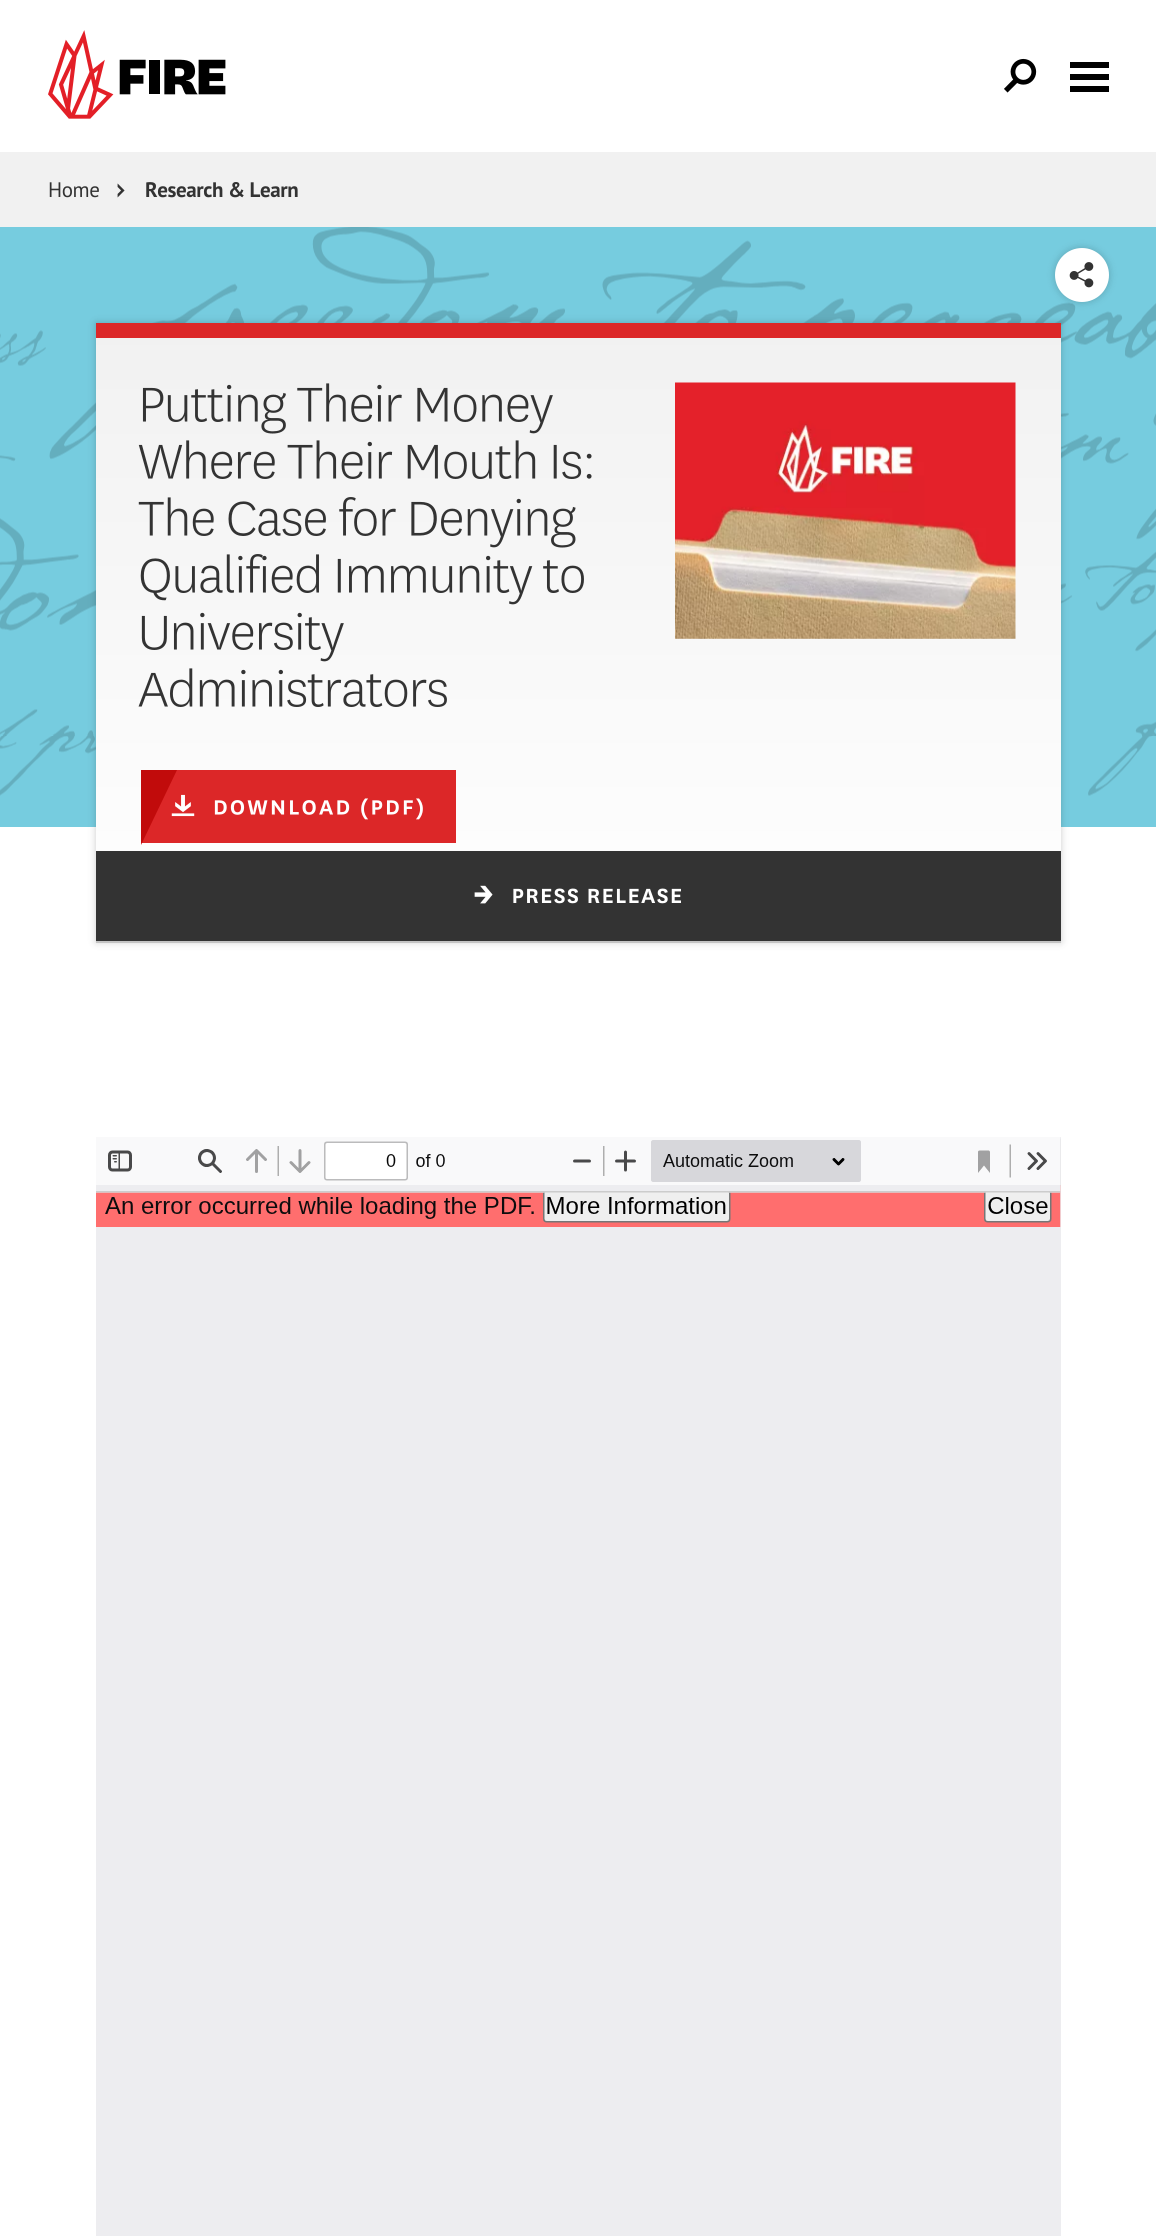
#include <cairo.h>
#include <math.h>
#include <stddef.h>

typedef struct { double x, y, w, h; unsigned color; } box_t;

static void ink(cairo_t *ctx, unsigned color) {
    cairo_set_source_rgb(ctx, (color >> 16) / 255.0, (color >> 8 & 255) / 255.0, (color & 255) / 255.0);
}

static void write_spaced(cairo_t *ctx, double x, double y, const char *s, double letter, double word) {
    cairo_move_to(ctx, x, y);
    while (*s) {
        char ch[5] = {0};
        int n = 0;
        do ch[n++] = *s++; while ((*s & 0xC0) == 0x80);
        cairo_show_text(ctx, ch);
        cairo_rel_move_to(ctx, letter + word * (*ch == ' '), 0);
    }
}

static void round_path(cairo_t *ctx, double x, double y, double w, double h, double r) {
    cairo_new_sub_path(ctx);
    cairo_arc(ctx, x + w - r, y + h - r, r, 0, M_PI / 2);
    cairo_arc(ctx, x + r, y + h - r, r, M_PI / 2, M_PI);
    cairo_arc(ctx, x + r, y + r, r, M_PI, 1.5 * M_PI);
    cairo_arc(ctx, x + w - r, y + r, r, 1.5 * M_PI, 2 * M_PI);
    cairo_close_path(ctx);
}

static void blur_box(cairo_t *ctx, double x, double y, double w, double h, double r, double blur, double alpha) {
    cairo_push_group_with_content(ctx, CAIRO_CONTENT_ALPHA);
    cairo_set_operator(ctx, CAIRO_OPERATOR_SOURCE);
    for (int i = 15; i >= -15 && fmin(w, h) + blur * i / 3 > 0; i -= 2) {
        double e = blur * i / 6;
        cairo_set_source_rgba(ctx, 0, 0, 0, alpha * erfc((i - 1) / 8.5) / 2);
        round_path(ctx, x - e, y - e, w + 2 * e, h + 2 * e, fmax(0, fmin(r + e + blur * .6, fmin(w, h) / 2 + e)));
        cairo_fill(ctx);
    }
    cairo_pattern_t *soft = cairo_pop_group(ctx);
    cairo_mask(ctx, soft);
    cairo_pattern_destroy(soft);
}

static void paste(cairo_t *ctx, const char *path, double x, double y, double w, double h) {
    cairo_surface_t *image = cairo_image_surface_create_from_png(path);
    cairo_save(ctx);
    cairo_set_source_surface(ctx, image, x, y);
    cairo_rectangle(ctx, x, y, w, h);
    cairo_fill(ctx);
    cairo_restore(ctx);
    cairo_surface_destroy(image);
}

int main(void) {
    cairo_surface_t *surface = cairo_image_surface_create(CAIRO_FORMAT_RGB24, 1156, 2236);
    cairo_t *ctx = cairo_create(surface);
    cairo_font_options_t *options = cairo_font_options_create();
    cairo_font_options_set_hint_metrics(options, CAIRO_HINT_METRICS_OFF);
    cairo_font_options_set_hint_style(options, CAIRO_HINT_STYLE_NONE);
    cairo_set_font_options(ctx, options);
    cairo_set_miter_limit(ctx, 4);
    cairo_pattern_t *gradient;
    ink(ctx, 0xFFFFFF);
    cairo_paint(ctx);
    paste(ctx, "media/1.png", 48, 30, 178, 89);
    paste(ctx, "media/2.png", 1004, 58, 33, 35);
    {
        static const box_t items[] = {
            {1070, 74, 39, 6, 0x000000},
            {1070, 62, 39, 6, 0x000000},
            {1070, 86, 39, 6, 0x000000},
            {0, 152, 1156, 75, 0xF1F1F1},
        };
        for (size_t i = 0; i < sizeof items / sizeof *items; i++) {
            ink(ctx, items[i].color);
            cairo_rectangle(ctx, items[i].x, items[i].y, items[i].w, items[i].h);
            cairo_fill(ctx);
        }
    }
    cairo_select_font_face(ctx, "PT Sans", CAIRO_FONT_SLANT_NORMAL, CAIRO_FONT_WEIGHT_NORMAL);
    cairo_set_font_size(ctx, 21);
    ink(ctx, 0x333333);
    write_spaced(ctx, 48, 197, "Home", -0.4, 0);
    paste(ctx, "media/3.png", 117, 183, 8, 15);
    cairo_select_font_face(ctx, "PT Sans", CAIRO_FONT_SLANT_NORMAL, CAIRO_FONT_WEIGHT_BOLD);
    write_spaced(ctx, 145, 197, "Research & Learn", -0.4, 0);
    ink(ctx, 0x76CCDF);
    cairo_rectangle(ctx, 0, 227, 1156, 600);
    cairo_fill(ctx);
    paste(ctx, "media/4.png", 0, 227, 1156, 569);
    ink(ctx, 0x000000);
    blur_box(ctx, 1055, 248, 54, 54, 27, 4, 0.2);
    ink(ctx, 0xFFFFFF);
    cairo_arc(ctx, 1082, 275, 27, 0, 2 * M_PI);
    cairo_fill(ctx);
    paste(ctx, "media/5.png", 1069, 262, 25, 26);
    ink(ctx, 0x000000);
    blur_box(ctx, 96, 323, 965, 619, 0, 4, 0.2);
    gradient = cairo_pattern_create_linear(578, 322, 578, 942);
    cairo_pattern_add_color_stop_rgba(gradient, 0, 0.945, 0.945, 0.945, 1);
    cairo_pattern_add_color_stop_rgba(gradient, 1, 1, 1, 1, 1);
    cairo_set_source(ctx, gradient);
    cairo_pattern_destroy(gradient);
    cairo_rectangle(ctx, 96, 338, 965, 513);
    cairo_fill(ctx);
    ink(ctx, 0xDC2728);
    cairo_rectangle(ctx, 96, 323, 965, 15);
    cairo_fill(ctx);
    paste(ctx, "media/6.png", 142, 383, 411, 51);
    paste(ctx, "media/7.png", 138, 440, 454, 39);
    paste(ctx, "media/8.png", 138, 497, 438, 51);
    paste(ctx, "media/9.png", 140, 554, 444, 51);
    paste(ctx, "media/10.png", 141, 612, 203, 50);
    paste(ctx, "media/11.png", 138, 668, 309, 39);
    cairo_rectangle(ctx, 142, 770, 314, 73);
    cairo_fill(ctx);
    ink(ctx, 0xC10B0B);
    cairo_new_path(ctx);
    cairo_move_to(ctx, 141, 770);
    cairo_line_to(ctx, 177, 770);
    cairo_line_to(ctx, 141, 845);
    cairo_close_path(ctx);
    cairo_fill(ctx);
    paste(ctx, "media/12.png", 171, 794, 24, 23);
    paste(ctx, "media/13.png", 214, 798, 209, 22);
    paste(ctx, "media/14.png", 675, 382, 341, 257);
    ink(ctx, 0x333333);
    cairo_rectangle(ctx, 96, 851, 965, 90);
    cairo_fill(ctx);
    ink(ctx, 0xC4C4C4);
    cairo_rectangle(ctx, 96, 941, 965, 2);
    cairo_fill(ctx);
    paste(ctx, "media/15.png", 474, 885, 19, 19);
    paste(ctx, "media/16.png", 513, 888, 168, 16);
    paste(ctx, "media/17.png", 96, 1137, 965, 1099);
    cairo_surface_write_to_png(surface, "image.png");
    cairo_font_options_destroy(options);
    cairo_destroy(ctx);
    cairo_surface_destroy(surface);
    return 0;
}
